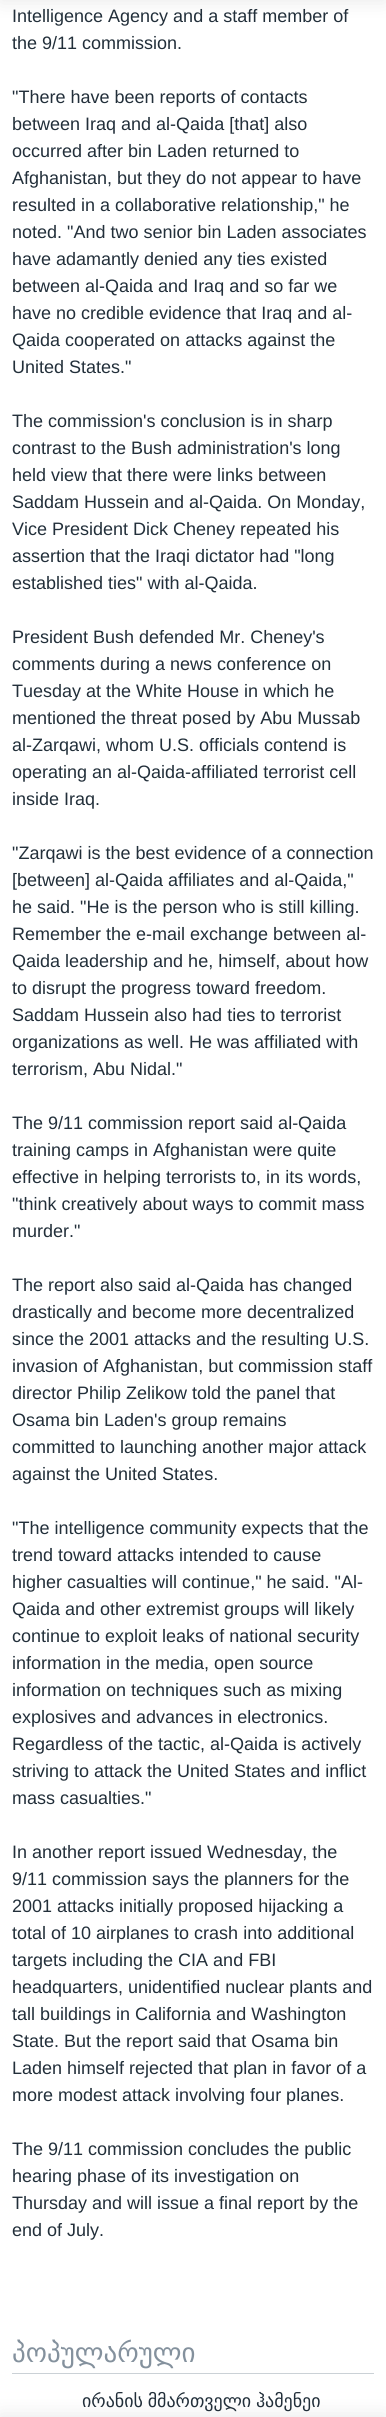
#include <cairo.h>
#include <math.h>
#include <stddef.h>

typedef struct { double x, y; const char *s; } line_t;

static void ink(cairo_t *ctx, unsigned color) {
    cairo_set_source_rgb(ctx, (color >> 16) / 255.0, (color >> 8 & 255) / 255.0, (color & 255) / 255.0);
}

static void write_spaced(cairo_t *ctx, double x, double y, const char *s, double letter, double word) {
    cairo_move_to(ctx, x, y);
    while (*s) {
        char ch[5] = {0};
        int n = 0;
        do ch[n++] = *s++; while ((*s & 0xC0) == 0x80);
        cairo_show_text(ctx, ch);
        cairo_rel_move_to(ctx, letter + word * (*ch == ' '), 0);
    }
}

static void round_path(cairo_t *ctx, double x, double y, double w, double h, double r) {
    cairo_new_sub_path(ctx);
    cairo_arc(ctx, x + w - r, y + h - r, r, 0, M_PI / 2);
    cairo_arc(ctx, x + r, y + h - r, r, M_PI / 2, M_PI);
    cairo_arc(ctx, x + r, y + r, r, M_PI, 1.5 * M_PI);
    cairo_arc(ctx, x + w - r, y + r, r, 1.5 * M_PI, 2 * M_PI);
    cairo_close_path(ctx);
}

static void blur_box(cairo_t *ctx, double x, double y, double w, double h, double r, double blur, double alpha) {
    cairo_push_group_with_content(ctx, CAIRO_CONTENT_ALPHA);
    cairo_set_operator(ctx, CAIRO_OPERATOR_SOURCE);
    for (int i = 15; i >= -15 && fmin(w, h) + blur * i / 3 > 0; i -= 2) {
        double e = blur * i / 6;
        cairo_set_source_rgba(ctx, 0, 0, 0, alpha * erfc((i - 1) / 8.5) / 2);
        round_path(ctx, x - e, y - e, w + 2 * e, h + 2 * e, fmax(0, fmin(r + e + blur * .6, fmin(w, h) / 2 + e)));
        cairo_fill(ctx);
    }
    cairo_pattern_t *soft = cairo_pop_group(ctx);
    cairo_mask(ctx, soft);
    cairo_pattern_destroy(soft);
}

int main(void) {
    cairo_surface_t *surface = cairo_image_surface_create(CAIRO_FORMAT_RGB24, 386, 2417);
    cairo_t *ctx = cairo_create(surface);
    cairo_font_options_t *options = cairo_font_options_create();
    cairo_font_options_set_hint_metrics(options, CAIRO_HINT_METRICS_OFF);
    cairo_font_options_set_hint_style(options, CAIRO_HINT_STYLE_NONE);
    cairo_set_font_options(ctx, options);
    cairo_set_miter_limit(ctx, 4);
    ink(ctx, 0xFFFFFF);
    cairo_paint(ctx);
    ink(ctx, 0x000000);
    blur_box(ctx, 0, -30, 386, 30, 0, 10, 0.1);
    blur_box(ctx, 0, 2417, 386, 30, 0, 10, 0.1);
    cairo_select_font_face(ctx, "Liberation Sans", CAIRO_FONT_SLANT_NORMAL, CAIRO_FONT_WEIGHT_NORMAL);
    cairo_set_font_size(ctx, 18);
    ink(ctx, 0x222F3A);
    {
        static const line_t items[] = {
            {12, 22, "Intelligence Agency and a staff member of"},
            {12, 49, "the 9/11 commission."},
            {12, 103, "\"There have been reports of contacts"},
            {12, 130, "between Iraq and al-Qaida [that] also"},
            {12, 157, "occurred after bin Laden returned to"},
            {12, 184, "Afghanistan, but they do not appear to have"},
            {12, 211, "resulted in a collaborative relationship,\" he"},
            {12, 238, "noted. \"And two senior bin Laden associates"},
            {12, 265, "have adamantly denied any ties existed"},
            {12, 292, "between al-Qaida and Iraq and so far we"},
            {12, 319, "have no credible evidence that Iraq and al-"},
            {12, 346, "Qaida cooperated on attacks against the"},
            {12, 373, "United States.\""},
            {12, 427, "The commission's conclusion is in sharp"},
            {12, 454, "contrast to the Bush administration's long"},
            {12, 481, "held view that there were links between"},
            {12, 508, "Saddam Hussein and al-Qaida. On Monday,"},
            {12, 535, "Vice President Dick Cheney repeated his"},
            {12, 562, "assertion that the Iraqi dictator had \"long"},
            {12, 589, "established ties\" with al-Qaida."},
            {12, 643, "President Bush defended Mr. Cheney's"},
            {12, 670, "comments during a news conference on"},
            {12, 697, "Tuesday at the White House in which he"},
            {12, 724, "mentioned the threat posed by Abu Mussab"},
            {12, 751, "al-Zarqawi, whom U.S. officials contend is"},
            {12, 778, "operating an al-Qaida-affiliated terrorist cell"},
            {12, 805, "inside Iraq."},
            {12, 859, "\"Zarqawi is the best evidence of a connection"},
            {12, 886, "[between] al-Qaida affiliates and al-Qaida,\""},
            {12, 913, "he said. \"He is the person who is still killing."},
            {12, 940, "Remember the e-mail exchange between al-"},
            {12, 967, "Qaida leadership and he, himself, about how"},
            {12, 994, "to disrupt the progress toward freedom."},
            {12, 1021, "Saddam Hussein also had ties to terrorist"},
            {12, 1048, "organizations as well. He was affiliated with"},
            {12, 1075, "terrorism, Abu Nidal.\""},
            {12, 1129, "The 9/11 commission report said al-Qaida"},
            {12, 1156, "training camps in Afghanistan were quite"},
            {12, 1183, "effective in helping terrorists to, in its words,"},
            {12, 1210, "\"think creatively about ways to commit mass"},
            {12, 1237, "murder.\""},
            {12, 1291, "The report also said al-Qaida has changed"},
            {12, 1318, "drastically and become more decentralized"},
            {12, 1345, "since the 2001 attacks and the resulting U.S."},
            {12, 1372, "invasion of Afghanistan, but commission staff"},
            {12, 1399, "director Philip Zelikow told the panel that"},
            {12, 1426, "Osama bin Laden's group remains"},
            {12, 1453, "committed to launching another major attack"},
            {12, 1480, "against the United States."},
            {12, 1534, "\"The intelligence community expects that the"},
            {12, 1561, "trend toward attacks intended to cause"},
            {12, 1588, "higher casualties will continue,\" he said. \"Al-"},
            {12, 1615, "Qaida and other extremist groups will likely"},
            {12, 1642, "continue to exploit leaks of national security"},
            {12, 1669, "information in the media, open source"},
            {12, 1696, "information on techniques such as mixing"},
            {12, 1723, "explosives and advances in electronics."},
            {12, 1750, "Regardless of the tactic, al-Qaida is actively"},
            {12, 1777, "striving to attack the United States and inflict"},
            {12, 1804, "mass casualties.\""},
            {12, 1858, "In another report issued Wednesday, the"},
            {12, 1885, "9/11 commission says the planners for the"},
            {12, 1912, "2001 attacks initially proposed hijacking a"},
            {12, 1939, "total of 10 airplanes to crash into additional"},
            {12, 1966, "targets including the CIA and FBI"},
            {12, 1993, "headquarters, unidentified nuclear plants and"},
            {12, 2020, "tall buildings in California and Washington"},
            {12, 2047, "State. But the report said that Osama bin"},
            {12, 2074, "Laden himself rejected that plan in favor of a"},
            {12, 2101, "more modest attack involving four planes."},
            {12, 2155, "The 9/11 commission concludes the public"},
            {12, 2182, "hearing phase of its investigation on"},
            {12, 2209, "Thursday and will issue a final report by the"},
            {12, 2236, "end of July."},
        };
        for (size_t i = 0; i < sizeof items / sizeof *items; i++) {
            cairo_move_to(ctx, items[i].x, items[i].y);
            cairo_show_text(ctx, items[i].s);
        }
    }
    ink(ctx, 0xCBD1D6);
    cairo_rectangle(ctx, 12, 2373, 362, 1);
    cairo_fill(ctx);
    cairo_select_font_face(ctx, "DejaVu Sans", CAIRO_FONT_SLANT_NORMAL, CAIRO_FONT_WEIGHT_NORMAL);
    cairo_set_font_size(ctx, 27);
    ink(ctx, 0x84919D);
    cairo_move_to(ctx, 12, 2362);
    cairo_show_text(ctx, "პოპულარული");
    cairo_set_font_size(ctx, 18);
    ink(ctx, 0x222F3A);
    write_spaced(ctx, 82, 2407, "ირანის მმართველი ჰამენეი", 0, -1);
    cairo_surface_write_to_png(surface, "image.png");
    cairo_font_options_destroy(options);
    cairo_destroy(ctx);
    cairo_surface_destroy(surface);
    return 0;
}
